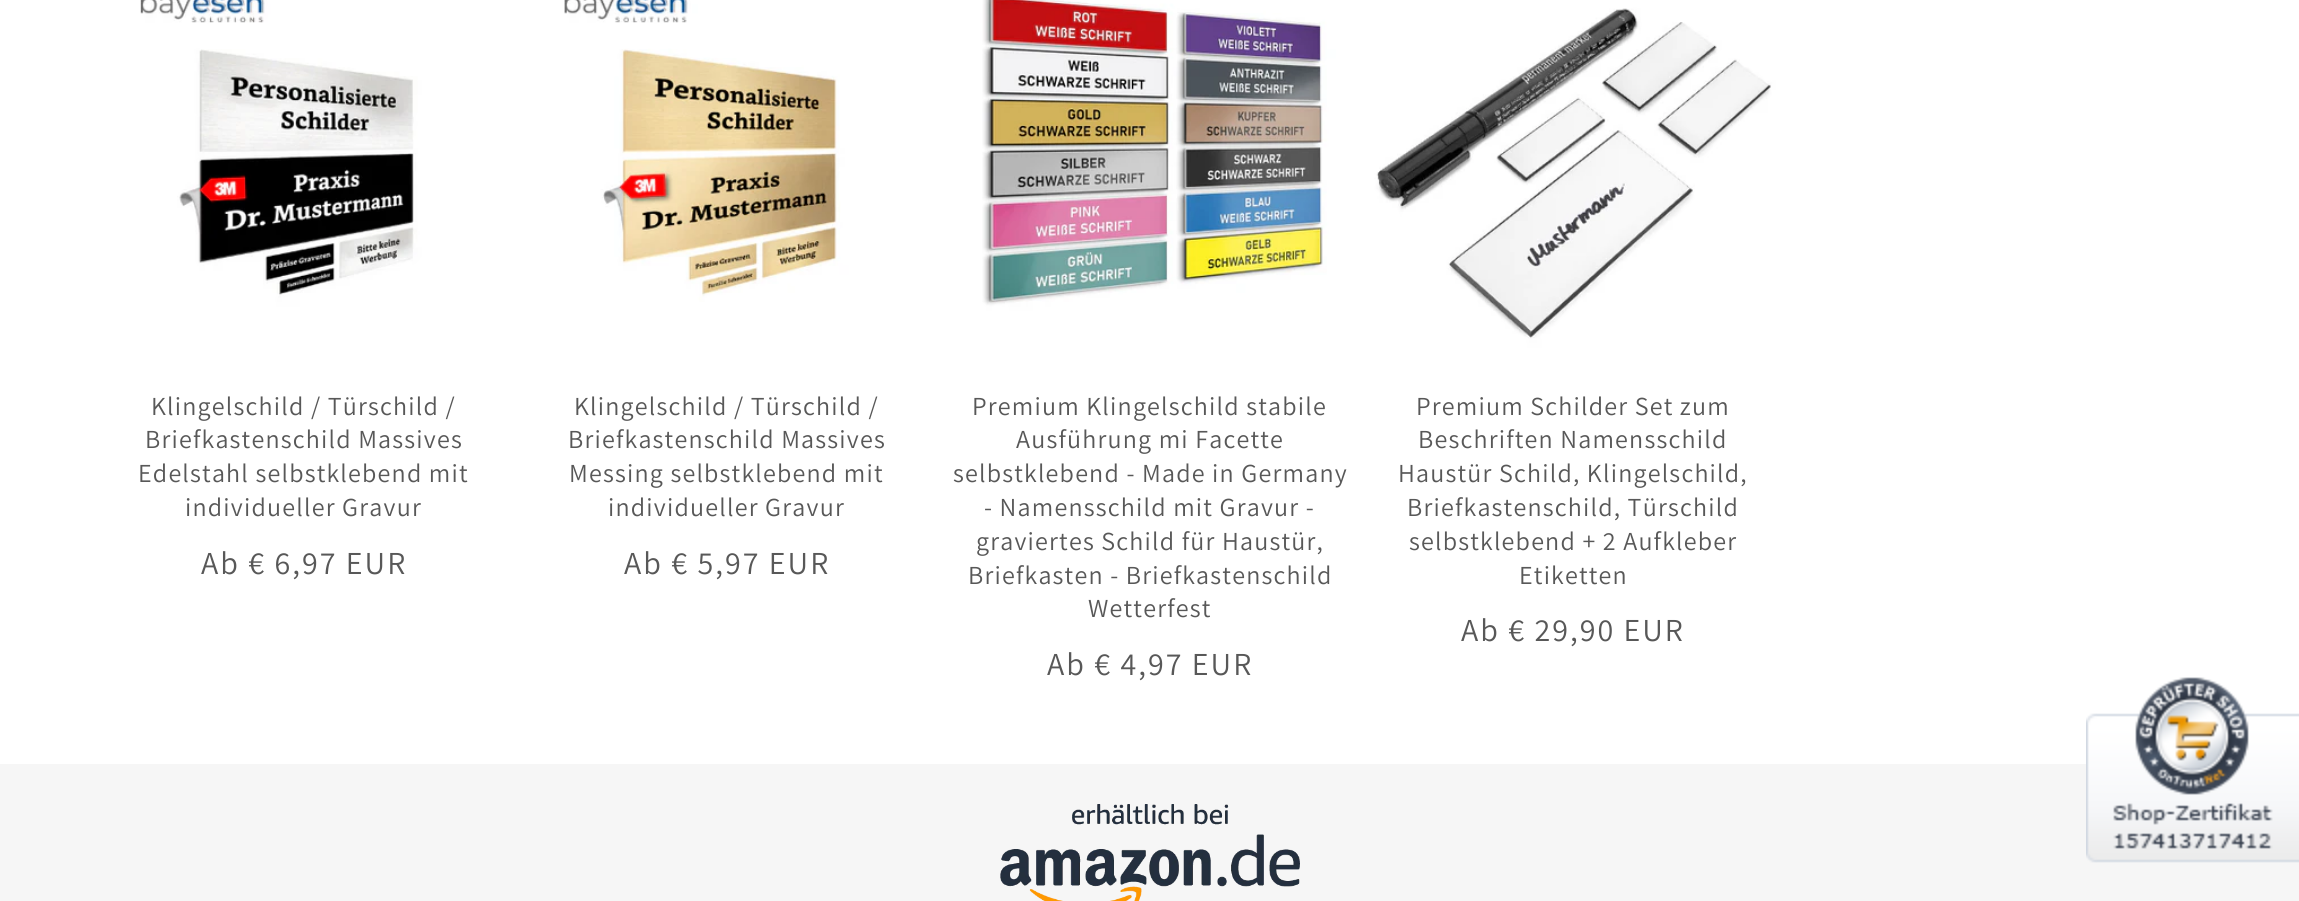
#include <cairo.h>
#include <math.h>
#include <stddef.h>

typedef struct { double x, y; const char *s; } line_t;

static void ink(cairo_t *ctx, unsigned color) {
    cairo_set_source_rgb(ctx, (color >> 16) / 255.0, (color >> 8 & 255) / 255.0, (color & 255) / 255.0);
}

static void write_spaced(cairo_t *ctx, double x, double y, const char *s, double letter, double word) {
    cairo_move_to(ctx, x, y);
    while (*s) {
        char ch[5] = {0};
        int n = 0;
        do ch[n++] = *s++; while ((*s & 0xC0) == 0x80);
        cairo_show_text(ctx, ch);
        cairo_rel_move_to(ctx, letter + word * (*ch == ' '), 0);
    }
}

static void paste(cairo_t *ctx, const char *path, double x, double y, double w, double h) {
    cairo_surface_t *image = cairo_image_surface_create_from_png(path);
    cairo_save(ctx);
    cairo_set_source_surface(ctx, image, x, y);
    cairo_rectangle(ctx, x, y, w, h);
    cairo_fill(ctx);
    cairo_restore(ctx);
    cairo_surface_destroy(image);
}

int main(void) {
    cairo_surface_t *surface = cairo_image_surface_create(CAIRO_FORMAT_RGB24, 2299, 901);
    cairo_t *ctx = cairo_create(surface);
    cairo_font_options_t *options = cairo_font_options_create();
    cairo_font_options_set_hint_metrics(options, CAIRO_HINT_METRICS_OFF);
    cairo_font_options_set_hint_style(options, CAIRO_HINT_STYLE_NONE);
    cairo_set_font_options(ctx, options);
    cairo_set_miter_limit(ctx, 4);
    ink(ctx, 0xFFFFFF);
    cairo_paint(ctx);
    paste(ctx, "media/1.png", 100, 0, 408, 356);
    cairo_select_font_face(ctx, "Assistant", CAIRO_FONT_SLANT_NORMAL, CAIRO_FONT_WEIGHT_NORMAL);
    cairo_set_font_size(ctx, 26);
    ink(ctx, 0x585858);
    {
        static const line_t items[] = {
            {151, 415, "Klingelschild / Türschild /"},
            {145, 448, "Briefkastenschild Massives"},
            {138, 482, "Edelstahl selbstklebend mit"},
            {185, 516, "individueller Gravur"},
        };
        for (size_t i = 0; i < sizeof items / sizeof *items; i++) {
            write_spaced(ctx, items[i].x, items[i].y, items[i].s, 1.2, 0);
        }
    }
    cairo_set_font_size(ctx, 32);
    write_spaced(ctx, 201, 574, "Ab € 6,97 EUR", 2, 0);
    paste(ctx, "media/2.png", 524, 0, 406, 356);
    cairo_set_font_size(ctx, 26);
    {
        static const line_t items[] = {
            {574, 415, "Klingelschild / Türschild /"},
            {568, 448, "Briefkastenschild Massives"},
            {569, 482, "Messing selbstklebend mit"},
            {608, 516, "individueller Gravur"},
        };
        for (size_t i = 0; i < sizeof items / sizeof *items; i++) {
            write_spaced(ctx, items[i].x, items[i].y, items[i].s, 1.2, 0);
        }
    }
    cairo_set_font_size(ctx, 32);
    write_spaced(ctx, 624, 574, "Ab € 5,97 EUR", 2, 0);
    paste(ctx, "media/3.png", 946, 0, 408, 356);
    cairo_set_font_size(ctx, 26);
    {
        static const line_t items[] = {
            {972, 415, "Premium Klingelschild stabile"},
            {1016, 448, "Ausführung mi Facette"},
            {953, 482, "selbstklebend - Made in Germany"},
            {984, 516, "- Namensschild mit Gravur -"},
            {976, 550, "graviertes Schild für Haustür,"},
            {968, 584, "Briefkasten - Briefkastenschild"},
            {1088, 617, "Wetterfest"},
        };
        for (size_t i = 0; i < sizeof items / sizeof *items; i++) {
            write_spaced(ctx, items[i].x, items[i].y, items[i].s, 1.2, 0);
        }
    }
    cairo_set_font_size(ctx, 32);
    write_spaced(ctx, 1047, 675, "Ab € 4,97 EUR", 2, 0);
    paste(ctx, "media/4.png", 1370, 0, 406, 356);
    cairo_set_font_size(ctx, 26);
    {
        static const line_t items[] = {
            {1416, 415, "Premium Schilder Set zum"},
            {1418, 448, "Beschriften Namensschild"},
            {1398, 482, "Haustür Schild, Klingelschild,"},
            {1407, 516, "Briefkastenschild, Türschild"},
            {1409, 550, "selbstklebend + 2 Aufkleber"},
            {1519, 584, "Etiketten"},
        };
        for (size_t i = 0; i < sizeof items / sizeof *items; i++) {
            write_spaced(ctx, items[i].x, items[i].y, items[i].s, 1.2, 0);
        }
    }
    cairo_set_font_size(ctx, 32);
    write_spaced(ctx, 1461, 641, "Ab € 29,90 EUR", 2, 0);
    ink(ctx, 0xF6F6F6);
    cairo_rectangle(ctx, 0, 764, 2299, 137);
    cairo_fill(ctx);
    paste(ctx, "media/5.png", 2086, 677, 213, 186);
    paste(ctx, "media/6.png", 1000, 804, 300, 97);
    cairo_surface_write_to_png(surface, "image.png");
    cairo_font_options_destroy(options);
    cairo_destroy(ctx);
    cairo_surface_destroy(surface);
    return 0;
}
